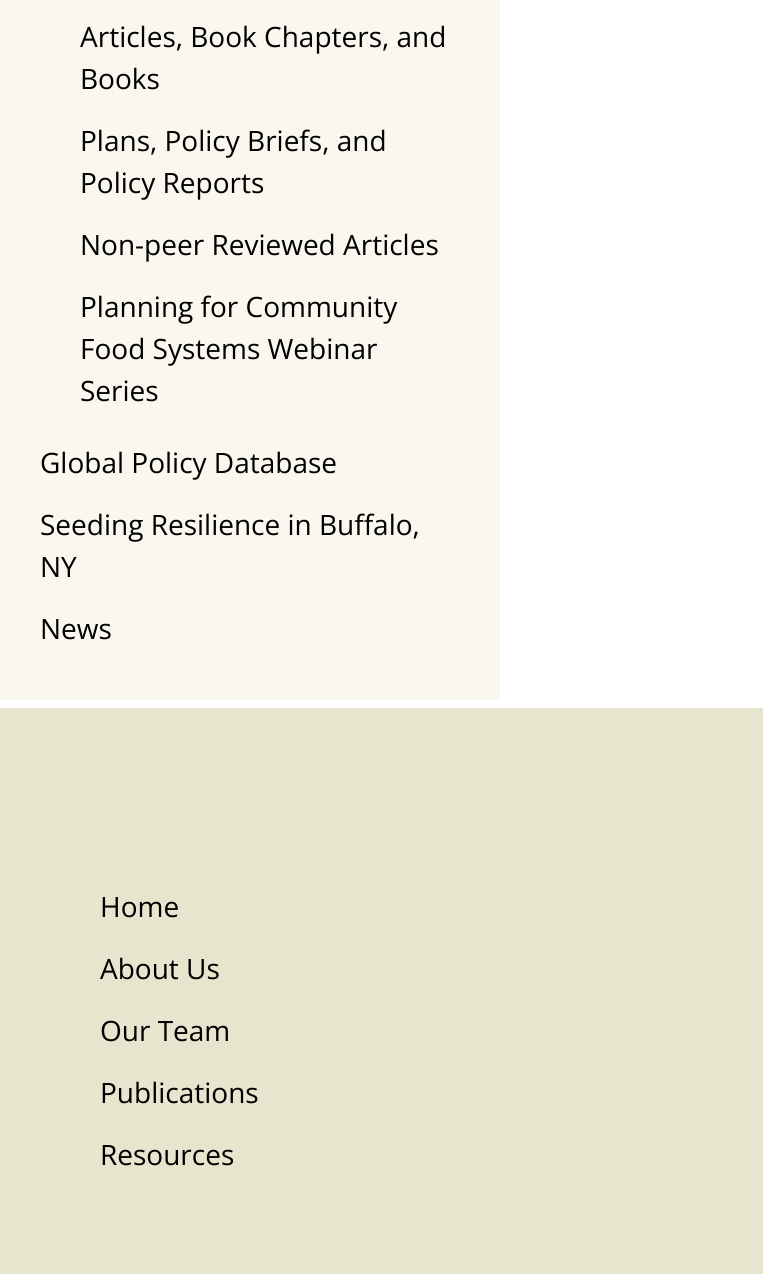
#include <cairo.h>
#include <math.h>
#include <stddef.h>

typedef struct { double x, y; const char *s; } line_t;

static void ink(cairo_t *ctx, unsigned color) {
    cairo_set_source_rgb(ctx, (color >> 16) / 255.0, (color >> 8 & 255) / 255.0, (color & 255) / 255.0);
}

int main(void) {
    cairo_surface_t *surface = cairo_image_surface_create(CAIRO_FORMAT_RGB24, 763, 1274);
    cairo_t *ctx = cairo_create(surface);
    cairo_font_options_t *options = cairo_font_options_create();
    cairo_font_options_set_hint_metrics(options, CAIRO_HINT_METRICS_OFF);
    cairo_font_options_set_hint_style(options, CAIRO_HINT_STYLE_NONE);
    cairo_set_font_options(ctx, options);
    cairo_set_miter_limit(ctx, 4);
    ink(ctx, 0xFFFFFF);
    cairo_paint(ctx);
    ink(ctx, 0xFAF8EE);
    cairo_rectangle(ctx, 0, 0, 500, 700);
    cairo_fill(ctx);
    cairo_select_font_face(ctx, "Open Sans", CAIRO_FONT_SLANT_NORMAL, CAIRO_FONT_WEIGHT_NORMAL);
    cairo_set_font_size(ctx, 28);
    ink(ctx, 0x000000);
    {
        static const line_t items[] = {
            {80, 47, "Articles, Book Chapters, and"},
            {80, 89, "Books"},
            {80, 151, "Plans, Policy Briefs, and"},
            {80, 193, "Policy Reports"},
            {80, 255, "Non-peer Reviewed Articles"},
            {80, 317, "Planning for Community"},
            {80, 359, "Food Systems Webinar"},
            {80, 401, "Series"},
            {40, 473, "Global Policy Database"},
            {40, 535, "Seeding Resilience in Buffalo,"},
            {40, 577, "NY"},
            {40, 639, "News"},
        };
        for (size_t i = 0; i < sizeof items / sizeof *items; i++) {
            cairo_move_to(ctx, items[i].x, items[i].y);
            cairo_show_text(ctx, items[i].s);
        }
    }
    ink(ctx, 0xE8E5CE);
    cairo_rectangle(ctx, 0, 708, 763, 566);
    cairo_fill(ctx);
    ink(ctx, 0x000000);
    {
        static const line_t items[] = {
            {100, 917, "Home"},
            {100, 979, "About Us"},
            {100, 1041, "Our Team"},
            {100, 1103, "Publications"},
            {100, 1165, "Resources"},
        };
        for (size_t i = 0; i < sizeof items / sizeof *items; i++) {
            cairo_move_to(ctx, items[i].x, items[i].y);
            cairo_show_text(ctx, items[i].s);
        }
    }
    cairo_surface_write_to_png(surface, "image.png");
    cairo_font_options_destroy(options);
    cairo_destroy(ctx);
    cairo_surface_destroy(surface);
    return 0;
}
